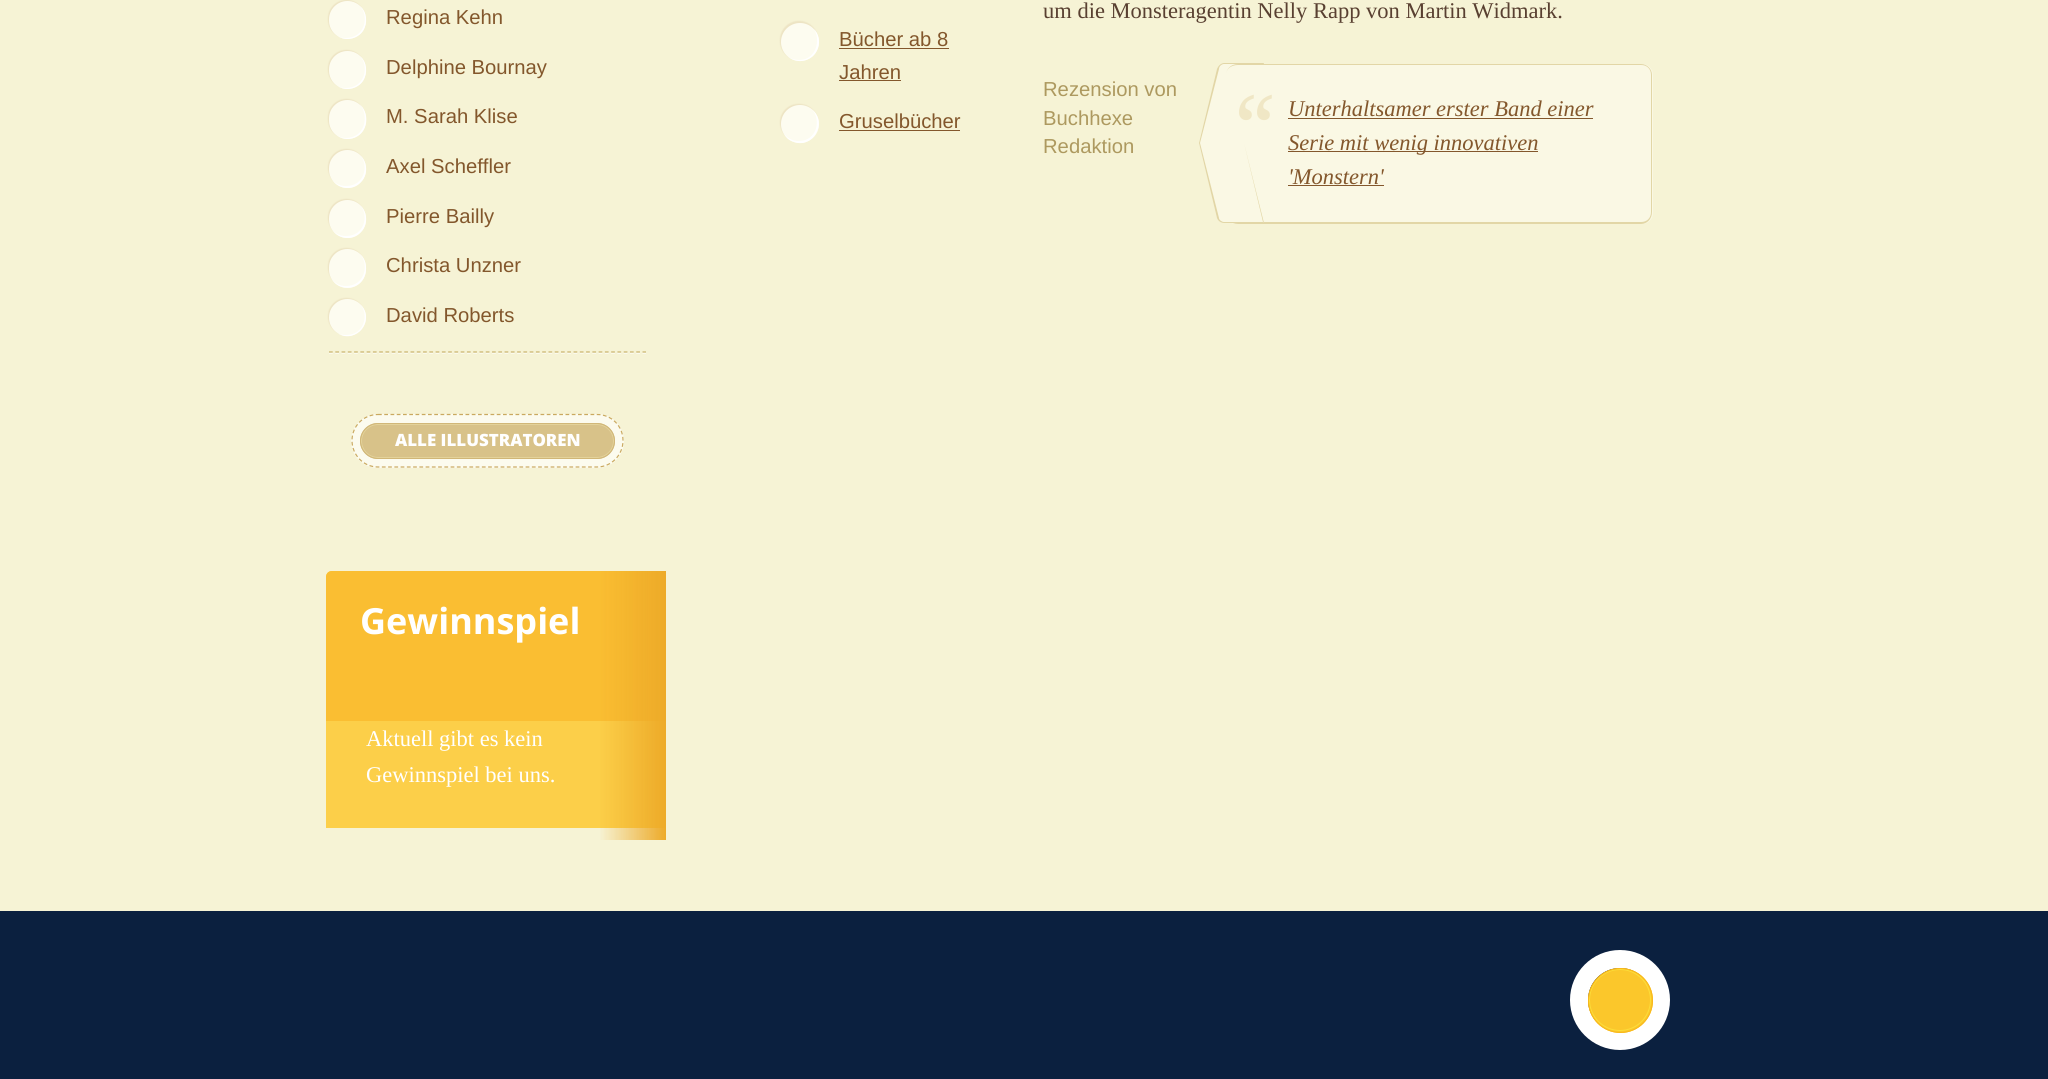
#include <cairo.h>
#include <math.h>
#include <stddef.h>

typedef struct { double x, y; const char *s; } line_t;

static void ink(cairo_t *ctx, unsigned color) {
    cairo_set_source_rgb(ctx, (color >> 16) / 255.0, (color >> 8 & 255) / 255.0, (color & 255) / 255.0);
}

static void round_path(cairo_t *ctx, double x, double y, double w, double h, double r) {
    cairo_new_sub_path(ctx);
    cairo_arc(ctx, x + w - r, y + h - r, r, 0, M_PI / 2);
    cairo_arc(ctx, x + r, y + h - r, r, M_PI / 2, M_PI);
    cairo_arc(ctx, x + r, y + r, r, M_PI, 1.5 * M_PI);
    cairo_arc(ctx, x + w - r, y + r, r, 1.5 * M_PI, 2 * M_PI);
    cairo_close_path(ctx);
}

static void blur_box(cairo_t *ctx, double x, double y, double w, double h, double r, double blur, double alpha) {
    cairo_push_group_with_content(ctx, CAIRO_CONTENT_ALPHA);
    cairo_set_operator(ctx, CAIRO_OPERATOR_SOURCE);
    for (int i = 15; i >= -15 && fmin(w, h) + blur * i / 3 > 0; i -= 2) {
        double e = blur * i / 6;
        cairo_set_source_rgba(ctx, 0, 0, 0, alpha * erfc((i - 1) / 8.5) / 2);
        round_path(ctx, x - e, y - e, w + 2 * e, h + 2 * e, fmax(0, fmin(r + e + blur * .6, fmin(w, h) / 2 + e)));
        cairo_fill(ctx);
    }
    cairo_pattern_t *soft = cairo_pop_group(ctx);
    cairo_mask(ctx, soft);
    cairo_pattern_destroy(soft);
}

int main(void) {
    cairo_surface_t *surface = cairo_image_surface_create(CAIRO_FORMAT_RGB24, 2048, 1079);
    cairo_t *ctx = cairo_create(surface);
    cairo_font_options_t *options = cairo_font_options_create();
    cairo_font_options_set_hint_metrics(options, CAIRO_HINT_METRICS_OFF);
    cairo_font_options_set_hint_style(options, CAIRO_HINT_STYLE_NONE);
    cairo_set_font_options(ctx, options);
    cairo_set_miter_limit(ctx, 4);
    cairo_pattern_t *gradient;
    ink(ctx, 0xF6F3D5);
    cairo_paint(ctx);
    cairo_new_path(ctx);
    cairo_move_to(ctx, 329, 353);
    cairo_line_to(ctx, 646, 353);
    ink(ctx, 0xFFFFFF);
    cairo_set_line_width(ctx, 1.2);
    cairo_set_dash(ctx, (double[]){3.75, 2.52}, 2, 0);
    cairo_stroke(ctx);
    ink(ctx, 0xEDE4C4);
    blur_box(ctx, 328, 0, 37, 38, 18.5, 0.5, 1);
    ink(ctx, 0xFDFCF0);
    round_path(ctx, 329, 1, 37, 38, 18.5);
    cairo_fill(ctx);
    ink(ctx, 0xFFFFFF);
    cairo_new_path(ctx);
    cairo_move_to(ctx, 337.5, 36);
    cairo_curve_to(ctx, 345.5, 41.5, 357.5, 39, 363, 31);
    cairo_curve_to(ctx, 368, 23, 367, 12, 360, 6);
    cairo_curve_to(ctx, 369.5, 16.5, 365, 38, 346, 38);
    cairo_curve_to(ctx, 342.5, 38, 340, 37.5, 337.5, 36);
    cairo_close_path(ctx);
    cairo_fill(ctx);
    cairo_select_font_face(ctx, "Liberation Sans", CAIRO_FONT_SLANT_NORMAL, CAIRO_FONT_WEIGHT_NORMAL);
    cairo_set_font_size(ctx, 20.25);
    ink(ctx, 0x83572C);
    cairo_move_to(ctx, 386, 24);
    cairo_show_text(ctx, "Regina Kehn");
    ink(ctx, 0xEDE4C4);
    blur_box(ctx, 328, 50, 37, 38, 18.5, 0.5, 1);
    ink(ctx, 0xFDFCF0);
    round_path(ctx, 329, 51, 37, 38, 18.5);
    cairo_fill(ctx);
    ink(ctx, 0xFFFFFF);
    cairo_new_path(ctx);
    cairo_move_to(ctx, 337.5, 86);
    cairo_curve_to(ctx, 345.5, 91.5, 357.5, 89, 363, 81);
    cairo_curve_to(ctx, 368, 73, 367, 62, 360, 56);
    cairo_curve_to(ctx, 369.5, 66.5, 365, 88, 346, 88);
    cairo_curve_to(ctx, 342.5, 88, 340, 87.5, 337.5, 86);
    cairo_close_path(ctx);
    cairo_fill(ctx);
    ink(ctx, 0x83572C);
    cairo_move_to(ctx, 386, 74);
    cairo_show_text(ctx, "Delphine Bournay");
    ink(ctx, 0xEDE4C4);
    blur_box(ctx, 328, 99, 37, 39, 18.5, 0.5, 1);
    ink(ctx, 0xFDFCF0);
    round_path(ctx, 329, 100, 37, 39, 18.5);
    cairo_fill(ctx);
    ink(ctx, 0xFFFFFF);
    cairo_new_path(ctx);
    cairo_move_to(ctx, 337, 135.5);
    cairo_curve_to(ctx, 345.5, 141.5, 357, 139.5, 363, 131);
    cairo_curve_to(ctx, 368.5, 122.5, 367, 110.5, 359.5, 104);
    cairo_curve_to(ctx, 369.5, 115, 365.5, 138, 346, 138);
    cairo_curve_to(ctx, 342.5, 138, 339.5, 137, 337, 135.5);
    cairo_close_path(ctx);
    cairo_fill(ctx);
    ink(ctx, 0x83572C);
    cairo_move_to(ctx, 386, 123);
    cairo_show_text(ctx, "M. Sarah Klise");
    ink(ctx, 0xEDE4C4);
    blur_box(ctx, 328, 149, 37, 37, 18.5, 0.5, 1);
    ink(ctx, 0xFDFCF0);
    round_path(ctx, 329, 150, 37, 38, 18.5);
    cairo_fill(ctx);
    ink(ctx, 0xFFFFFF);
    cairo_new_path(ctx);
    cairo_move_to(ctx, 332, 179.5);
    cairo_curve_to(ctx, 338.5, 189.5, 352.5, 191, 360.5, 182.5);
    cairo_curve_to(ctx, 368, 175.5, 368, 163, 360.5, 155.5);
    cairo_curve_to(ctx, 369, 166, 364.5, 186, 346, 186);
    cairo_curve_to(ctx, 339.5, 186, 335, 183.5, 332, 179.5);
    cairo_close_path(ctx);
    cairo_fill(ctx);
    ink(ctx, 0x83572C);
    cairo_move_to(ctx, 386, 173);
    cairo_show_text(ctx, "Axel Scheffler");
    ink(ctx, 0xEDE4C4);
    blur_box(ctx, 328, 199, 37, 37, 18.5, 0.5, 1);
    ink(ctx, 0xFDFCF0);
    round_path(ctx, 329, 200, 37, 38, 18.5);
    cairo_fill(ctx);
    ink(ctx, 0xFFFFFF);
    cairo_new_path(ctx);
    cairo_move_to(ctx, 332, 229.5);
    cairo_curve_to(ctx, 338.5, 239.5, 352.5, 241, 360.5, 232.5);
    cairo_curve_to(ctx, 368, 225.5, 368, 213, 360.5, 205.5);
    cairo_curve_to(ctx, 369, 216, 364.5, 236, 346, 236);
    cairo_curve_to(ctx, 339.5, 236, 335, 233.5, 332, 229.5);
    cairo_close_path(ctx);
    cairo_fill(ctx);
    ink(ctx, 0x83572C);
    cairo_move_to(ctx, 386, 223);
    cairo_show_text(ctx, "Pierre Bailly");
    ink(ctx, 0xEDE4C4);
    blur_box(ctx, 328, 248, 37, 38, 18.5, 0.5, 1);
    ink(ctx, 0xFDFCF0);
    round_path(ctx, 329, 249, 37, 39, 18.5);
    cairo_fill(ctx);
    ink(ctx, 0xFFFFFF);
    cairo_new_path(ctx);
    cairo_move_to(ctx, 331.5, 278.5);
    cairo_curve_to(ctx, 337, 289, 352, 291, 360.5, 282.5);
    cairo_curve_to(ctx, 368, 275, 368, 261, 360, 254);
    cairo_curve_to(ctx, 369.5, 264.5, 365, 286, 346, 286);
    cairo_curve_to(ctx, 339, 286, 334.5, 283, 331.5, 278.5);
    cairo_close_path(ctx);
    cairo_fill(ctx);
    ink(ctx, 0x83572C);
    cairo_move_to(ctx, 386, 272);
    cairo_show_text(ctx, "Christa Unzner");
    ink(ctx, 0xEDE4C4);
    blur_box(ctx, 328, 298, 37, 37, 18.5, 0.5, 1);
    ink(ctx, 0xFDFCF0);
    cairo_arc(ctx, 347.5, 317.5, 18.5, 0, 2 * M_PI);
    cairo_fill(ctx);
    ink(ctx, 0xFFFFFF);
    cairo_new_path(ctx);
    cairo_move_to(ctx, 338, 333.5);
    cairo_curve_to(ctx, 356, 344.5, 376, 320, 360.5, 304.5);
    cairo_curve_to(ctx, 369, 315, 364.5, 335, 346, 335);
    cairo_curve_to(ctx, 343, 335, 340, 334.5, 338, 333.5);
    cairo_close_path(ctx);
    cairo_fill(ctx);
    ink(ctx, 0x83572C);
    cairo_move_to(ctx, 386, 322);
    cairo_show_text(ctx, "David Roberts");
    cairo_new_path(ctx);
    cairo_move_to(ctx, 329, 352);
    cairo_line_to(ctx, 646, 352);
    ink(ctx, 0xCAB36A);
    cairo_stroke(ctx);
    ink(ctx, 0xFCFBEE);
    round_path(ctx, 351, 414, 273, 54, 27);
    cairo_fill(ctx);
    cairo_new_path(ctx);
    cairo_move_to(ctx, 378, 414.5);
    cairo_line_to(ctx, 597, 414.5);
    cairo_curve_to(ctx, 611.5, 414.5, 623, 426, 623, 440.5);
    cairo_curve_to(ctx, 623, 455, 611.5, 467, 597, 467);
    cairo_line_to(ctx, 378, 467);
    cairo_curve_to(ctx, 363.5, 467, 352, 455, 352, 440.5);
    cairo_curve_to(ctx, 352, 426, 363.5, 414.5, 378, 414.5);
    cairo_close_path(ctx);
    ink(ctx, 0xCAA95F);
    cairo_set_dash(ctx, (double[]){3.75, 2.5}, 2, 0);
    cairo_stroke(ctx);
    ink(ctx, 0xD8C289);
    round_path(ctx, 360, 423, 255, 36, 18);
    cairo_fill(ctx);
    round_path(ctx, 361.5, 424.5, 252, 33, 16.5);
    ink(ctx, 0xE3D29A);
    cairo_set_line_width(ctx, 1);
    cairo_set_dash(ctx, NULL, 0, 0);
    cairo_stroke(ctx);
    round_path(ctx, 360.5, 423.5, 254, 35, 17.5);
    ink(ctx, 0xD1B778);
    cairo_stroke(ctx);
    cairo_select_font_face(ctx, "Open Sans ExtraBold", CAIRO_FONT_SLANT_NORMAL, CAIRO_FONT_WEIGHT_NORMAL);
    cairo_set_font_size(ctx, 16.9);
    ink(ctx, 0xFFFFFF);
    cairo_move_to(ctx, 395, 446);
    cairo_show_text(ctx, "ALLE ILLUSTRATOREN");
    ink(ctx, 0xFCCF49);
    cairo_new_path(ctx);
    cairo_move_to(ctx, 332, 571);
    cairo_line_to(ctx, 666, 571);
    cairo_line_to(ctx, 666, 828);
    cairo_line_to(ctx, 326, 828);
    cairo_line_to(ctx, 326, 577);
    cairo_curve_to(ctx, 326, 573.5, 328.5, 571, 332, 571);
    cairo_close_path(ctx);
    cairo_fill(ctx);
    ink(ctx, 0xFABE32);
    cairo_new_path(ctx);
    cairo_move_to(ctx, 332, 571);
    cairo_line_to(ctx, 666, 571);
    cairo_line_to(ctx, 666, 721);
    cairo_line_to(ctx, 326, 721);
    cairo_line_to(ctx, 326, 577);
    cairo_curve_to(ctx, 326, 573.5, 328.5, 571, 332, 571);
    cairo_close_path(ctx);
    cairo_fill(ctx);
    cairo_select_font_face(ctx, "Open Sans", CAIRO_FONT_SLANT_NORMAL, CAIRO_FONT_WEIGHT_BOLD);
    cairo_set_font_size(ctx, 36);
    ink(ctx, 0xFFFFFF);
    cairo_move_to(ctx, 360, 634);
    cairo_show_text(ctx, "Gewinnspiel");
    gradient = cairo_pattern_create_linear(599, 706, 666, 706);
    cairo_pattern_add_color_stop_rgba(gradient, 0, 0.929, 0.667, 0.157, 0);
    cairo_pattern_add_color_stop_rgba(gradient, 1, 0.929, 0.667, 0.157, 1);
    cairo_set_source(ctx, gradient);
    cairo_pattern_destroy(gradient);
    cairo_rectangle(ctx, 600, 571, 66, 269);
    cairo_fill(ctx);
    cairo_select_font_face(ctx, "Liberation Serif", CAIRO_FONT_SLANT_NORMAL, CAIRO_FONT_WEIGHT_NORMAL);
    cairo_set_font_size(ctx, 22.5);
    ink(ctx, 0xFFFFFF);
    cairo_move_to(ctx, 366, 746);
    cairo_show_text(ctx, "Aktuell gibt es kein");
    cairo_move_to(ctx, 366, 782);
    cairo_show_text(ctx, "Gewinnspiel bei uns.");
    ink(ctx, 0xEDE4C4);
    blur_box(ctx, 780, 21, 38, 39, 19, 0.5, 1);
    ink(ctx, 0xFDFCF0);
    cairo_arc(ctx, 800, 42, 19, 0, 2 * M_PI);
    cairo_fill(ctx);
    ink(ctx, 0xFFFFFF);
    cairo_new_path(ctx);
    cairo_move_to(ctx, 788, 56.5);
    cairo_curve_to(ctx, 795, 63, 806.5, 62.5, 813.5, 55.5);
    cairo_curve_to(ctx, 820.5, 48, 821, 36.5, 814, 29);
    cairo_curve_to(ctx, 821, 40.5, 816, 60, 799, 60);
    cairo_curve_to(ctx, 794.5, 60, 790.5, 58.5, 788, 56.5);
    cairo_close_path(ctx);
    cairo_fill(ctx);
    cairo_select_font_face(ctx, "Liberation Sans", CAIRO_FONT_SLANT_NORMAL, CAIRO_FONT_WEIGHT_NORMAL);
    cairo_set_font_size(ctx, 20.25);
    ink(ctx, 0x83572C);
    cairo_move_to(ctx, 839, 46);
    cairo_show_text(ctx, "Bücher ab 8");
    cairo_rectangle(ctx, 839, 48, 110, 1);
    cairo_fill(ctx);
    cairo_move_to(ctx, 839, 79);
    cairo_show_text(ctx, "Jahren");
    cairo_rectangle(ctx, 839, 80, 62, 1);
    cairo_fill(ctx);
    ink(ctx, 0xEDE4C4);
    blur_box(ctx, 780, 104, 38, 37, 18.5, 0.5, 1);
    ink(ctx, 0xFDFCF0);
    cairo_arc(ctx, 800, 124, 19, 0, 2 * M_PI);
    cairo_fill(ctx);
    ink(ctx, 0xFFFFFF);
    cairo_new_path(ctx);
    cairo_move_to(ctx, 783.5, 133);
    cairo_curve_to(ctx, 785.5, 137, 788.5, 140, 792.5, 141.5);
    cairo_curve_to(ctx, 812.5, 150, 828.5, 123, 812, 109.5);
    cairo_curve_to(ctx, 821.5, 119.5, 817, 141, 799, 141);
    cairo_curve_to(ctx, 791.5, 141, 786.5, 137.5, 783.5, 133);
    cairo_close_path(ctx);
    cairo_fill(ctx);
    ink(ctx, 0x83572C);
    cairo_move_to(ctx, 839, 128);
    cairo_show_text(ctx, "Gruselbücher");
    cairo_rectangle(ctx, 839, 130, 121, 1);
    cairo_fill(ctx);
    cairo_select_font_face(ctx, "Liberation Serif", CAIRO_FONT_SLANT_NORMAL, CAIRO_FONT_WEIGHT_NORMAL);
    cairo_set_font_size(ctx, 22.5);
    ink(ctx, 0x594031);
    cairo_move_to(ctx, 1043, 18);
    cairo_show_text(ctx, "um die Monsteragentin Nelly Rapp von Martin Widmark.");
    cairo_select_font_face(ctx, "Liberation Sans", CAIRO_FONT_SLANT_NORMAL, CAIRO_FONT_WEIGHT_NORMAL);
    cairo_set_font_size(ctx, 20.25);
    ink(ctx, 0xAD995F);
    {
        static const line_t items[] = {
            {1043, 96, "Rezension von"},
            {1043, 125, "Buchhexe"},
            {1043, 153, "Redaktion"},
        };
        for (size_t i = 0; i < sizeof items / sizeof *items; i++) {
            cairo_move_to(ctx, items[i].x, items[i].y);
            cairo_show_text(ctx, items[i].s);
        }
    }
    ink(ctx, 0xFAF8E4);
    cairo_new_path(ctx);
    cairo_move_to(ctx, 1224, 63);
    cairo_line_to(ctx, 1264, 63);
    cairo_line_to(ctx, 1244, 143);
    cairo_line_to(ctx, 1199, 143);
    cairo_line_to(ctx, 1217, 69);
    cairo_curve_to(ctx, 1218, 66, 1221, 63, 1224, 63);
    cairo_close_path(ctx);
    cairo_fill(ctx);
    ink(ctx, 0xE2D6A6);
    cairo_set_fill_rule(ctx, CAIRO_FILL_RULE_EVEN_ODD);
    cairo_new_path(ctx);
    cairo_move_to(ctx, 1224, 63);
    cairo_line_to(ctx, 1264, 63);
    cairo_line_to(ctx, 1244, 143);
    cairo_line_to(ctx, 1199, 143);
    cairo_line_to(ctx, 1217, 69);
    cairo_curve_to(ctx, 1218, 66, 1221, 63, 1224, 63);
    cairo_close_path(ctx);
    cairo_move_to(ctx, 1224, 64);
    cairo_line_to(ctx, 1263, 64);
    cairo_line_to(ctx, 1244, 143);
    cairo_line_to(ctx, 1200, 143);
    cairo_line_to(ctx, 1219, 69);
    cairo_curve_to(ctx, 1219, 66, 1222, 64, 1224, 64);
    cairo_close_path(ctx);
    cairo_fill(ctx);
    ink(ctx, 0xFAF8E4);
    round_path(ctx, 1226, 64, 427, 160, 11);
    cairo_fill(ctx);
    ink(ctx, 0xE2D6A6);
    cairo_new_path(ctx);
    cairo_move_to(ctx, 1238, 64);
    cairo_line_to(ctx, 1641, 64);
    cairo_curve_to(ctx, 1647, 64, 1652, 69, 1652, 75);
    cairo_line_to(ctx, 1652, 212);
    cairo_curve_to(ctx, 1652, 219, 1647, 224, 1641, 224);
    cairo_line_to(ctx, 1238, 224);
    cairo_curve_to(ctx, 1231, 224, 1226, 219, 1226, 212);
    cairo_line_to(ctx, 1226, 75);
    cairo_curve_to(ctx, 1226, 69, 1231, 64, 1238, 64);
    cairo_close_path(ctx);
    cairo_move_to(ctx, 1238, 65);
    cairo_line_to(ctx, 1641, 65);
    cairo_curve_to(ctx, 1647, 65, 1651, 69, 1651, 75);
    cairo_line_to(ctx, 1651, 212);
    cairo_curve_to(ctx, 1651, 218, 1647, 222, 1641, 222);
    cairo_line_to(ctx, 1238, 222);
    cairo_curve_to(ctx, 1231, 222, 1226, 218, 1226, 212);
    cairo_line_to(ctx, 1226, 75);
    cairo_curve_to(ctx, 1226, 69, 1231, 65, 1238, 65);
    cairo_close_path(ctx);
    cairo_fill(ctx);
    cairo_select_font_face(ctx, "Noto Serif", CAIRO_FONT_SLANT_NORMAL, CAIRO_FONT_WEIGHT_NORMAL);
    cairo_set_font_size(ctx, 90);
    ink(ctx, 0xF0E7C5);
    cairo_move_to(ctx, 1234, 159);
    cairo_show_text(ctx, "“");
    cairo_select_font_face(ctx, "Liberation Serif", CAIRO_FONT_SLANT_ITALIC, CAIRO_FONT_WEIGHT_NORMAL);
    cairo_set_font_size(ctx, 22.5);
    ink(ctx, 0x83572C);
    cairo_move_to(ctx, 1288, 116);
    cairo_show_text(ctx, "Unterhaltsamer erster Band einer");
    cairo_rectangle(ctx, 1288, 118, 305, 1);
    cairo_fill(ctx);
    cairo_rectangle(ctx, 1288, 151, 250, 1);
    cairo_fill(ctx);
    cairo_move_to(ctx, 1288, 150);
    cairo_show_text(ctx, "Serie mit wenig innovativen");
    cairo_move_to(ctx, 1288, 184);
    cairo_show_text(ctx, "'Monstern'");
    cairo_rectangle(ctx, 1288, 185, 96, 1);
    cairo_fill(ctx);
    ink(ctx, 0xFAF8E4);
    cairo_set_fill_rule(ctx, CAIRO_FILL_RULE_WINDING);
    cairo_new_path(ctx);
    cairo_move_to(ctx, 1199, 143);
    cairo_line_to(ctx, 1244, 143);
    cairo_line_to(ctx, 1264, 223);
    cairo_line_to(ctx, 1224, 223);
    cairo_curve_to(ctx, 1221, 223, 1218, 221, 1217, 218);
    cairo_close_path(ctx);
    cairo_fill(ctx);
    ink(ctx, 0xE2D6A6);
    cairo_set_fill_rule(ctx, CAIRO_FILL_RULE_EVEN_ODD);
    cairo_new_path(ctx);
    cairo_move_to(ctx, 1199, 143);
    cairo_line_to(ctx, 1244, 143);
    cairo_line_to(ctx, 1264, 223);
    cairo_line_to(ctx, 1224, 223);
    cairo_curve_to(ctx, 1221, 223, 1218, 221, 1217, 218);
    cairo_close_path(ctx);
    cairo_move_to(ctx, 1200, 143);
    cairo_line_to(ctx, 1244, 143);
    cairo_line_to(ctx, 1263, 222);
    cairo_line_to(ctx, 1224, 222);
    cairo_curve_to(ctx, 1222, 222, 1219, 220, 1219, 218);
    cairo_close_path(ctx);
    cairo_fill(ctx);
    ink(ctx, 0x0B203F);
    cairo_rectangle(ctx, 0, 911, 2048, 168);
    cairo_fill(ctx);
    ink(ctx, 0x000000);
    blur_box(ctx, 1588, 968, 65, 65, 32.5, 2, 0.2);
    cairo_arc(ctx, 1620, 1000, 41, 0, 2 * M_PI);
    ink(ctx, 0xFFFFFF);
    cairo_set_line_width(ctx, 18);
    cairo_stroke(ctx);
    ink(ctx, 0xFBC72B);
    cairo_arc(ctx, 1620.5, 1000.5, 32.5, 0, 2 * M_PI);
    cairo_fill(ctx);
    cairo_arc(ctx, 1620, 1000, 30.5, 0, 2 * M_PI);
    ink(ctx, 0xFCDD39);
    cairo_set_line_width(ctx, 1);
    cairo_stroke(ctx);
    cairo_arc(ctx, 1620.5, 1000.5, 32, 0, 2 * M_PI);
    ink(ctx, 0xF9B81A);
    cairo_stroke(ctx);
    cairo_surface_write_to_png(surface, "image.png");
    cairo_font_options_destroy(options);
    cairo_destroy(ctx);
    cairo_surface_destroy(surface);
    return 0;
}
